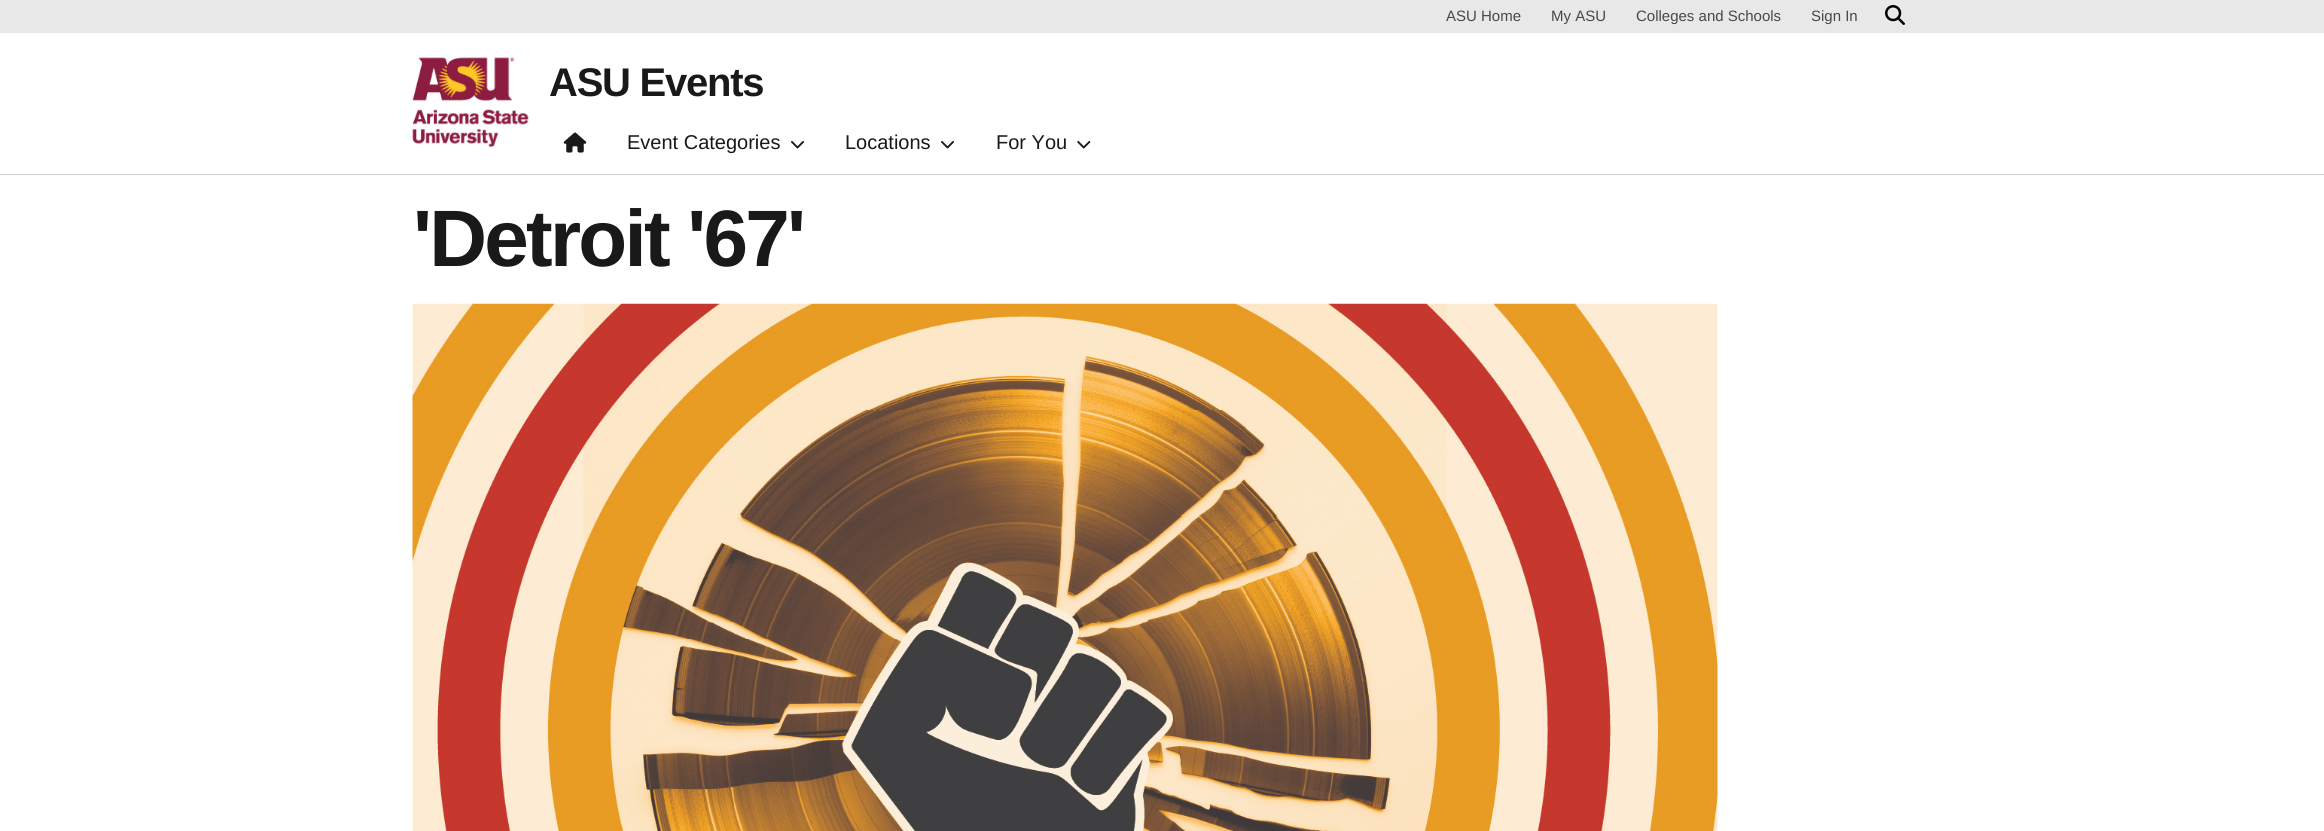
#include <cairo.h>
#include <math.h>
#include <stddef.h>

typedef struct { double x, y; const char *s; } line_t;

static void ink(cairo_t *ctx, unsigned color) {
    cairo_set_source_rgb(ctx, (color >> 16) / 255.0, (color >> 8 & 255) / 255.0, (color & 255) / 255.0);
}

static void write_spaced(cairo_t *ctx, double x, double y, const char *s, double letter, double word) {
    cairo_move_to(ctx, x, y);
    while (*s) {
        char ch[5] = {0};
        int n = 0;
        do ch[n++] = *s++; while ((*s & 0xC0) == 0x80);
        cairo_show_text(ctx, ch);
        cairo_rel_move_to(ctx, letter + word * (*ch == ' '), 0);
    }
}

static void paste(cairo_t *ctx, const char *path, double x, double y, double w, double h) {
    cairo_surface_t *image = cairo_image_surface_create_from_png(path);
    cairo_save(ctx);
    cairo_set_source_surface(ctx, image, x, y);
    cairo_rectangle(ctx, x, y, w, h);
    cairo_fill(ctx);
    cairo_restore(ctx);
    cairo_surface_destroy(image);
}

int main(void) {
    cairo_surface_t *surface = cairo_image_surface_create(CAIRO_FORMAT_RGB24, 2324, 831);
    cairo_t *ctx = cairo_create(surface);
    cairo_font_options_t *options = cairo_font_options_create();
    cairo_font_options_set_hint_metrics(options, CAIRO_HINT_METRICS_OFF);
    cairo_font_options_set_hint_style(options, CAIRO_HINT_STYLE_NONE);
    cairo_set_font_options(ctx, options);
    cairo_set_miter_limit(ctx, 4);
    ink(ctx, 0xFFFFFF);
    cairo_paint(ctx);
    ink(ctx, 0xE8E8E8);
    cairo_rectangle(ctx, 0, 0, 2324, 33);
    cairo_fill(ctx);
    cairo_select_font_face(ctx, "Liberation Sans", CAIRO_FONT_SLANT_NORMAL, CAIRO_FONT_WEIGHT_NORMAL);
    cairo_set_font_size(ctx, 15);
    ink(ctx, 0x484848);
    {
        static const line_t items[] = {
            {1446, 21, "ASU Home"},
            {1551, 21, "My ASU"},
            {1636, 21, "Colleges and Schools"},
            {1811, 21, "Sign In"},
        };
        for (size_t i = 0; i < sizeof items / sizeof *items; i++) {
            cairo_move_to(ctx, items[i].x, items[i].y);
            cairo_show_text(ctx, items[i].s);
        }
    }
    paste(ctx, "media/1.png", 1885, 5, 20, 20);
    ink(ctx, 0xD0D0D0);
    cairo_rectangle(ctx, 0, 174, 2324, 1);
    cairo_fill(ctx);
    paste(ctx, "media/2.png", 412, 57, 117, 91);
    cairo_select_font_face(ctx, "Liberation Sans", CAIRO_FONT_SLANT_NORMAL, CAIRO_FONT_WEIGHT_BOLD);
    cairo_set_font_size(ctx, 40);
    ink(ctx, 0x191919);
    write_spaced(ctx, 549, 96, "ASU Events", -1.25, 0);
    paste(ctx, "media/3.png", 563, 132, 24, 21);
    cairo_select_font_face(ctx, "Liberation Sans", CAIRO_FONT_SLANT_NORMAL, CAIRO_FONT_WEIGHT_NORMAL);
    cairo_set_font_size(ctx, 20);
    cairo_move_to(ctx, 627, 149);
    cairo_show_text(ctx, "Event Categories");
    paste(ctx, "media/4.png", 791, 141, 13, 8);
    cairo_move_to(ctx, 845, 149);
    cairo_show_text(ctx, "Locations");
    paste(ctx, "media/4.png", 941, 141, 13, 8);
    cairo_move_to(ctx, 996, 149);
    cairo_show_text(ctx, "For You");
    paste(ctx, "media/5.png", 1077, 141, 14, 8);
    cairo_select_font_face(ctx, "Liberation Sans", CAIRO_FONT_SLANT_NORMAL, CAIRO_FONT_WEIGHT_BOLD);
    cairo_set_font_size(ctx, 80);
    write_spaced(ctx, 413, 266, "'Detroit '67'", -2.75, 0);
    paste(ctx, "media/6.png", 412, 303, 1306, 528);
    cairo_surface_write_to_png(surface, "image.png");
    cairo_font_options_destroy(options);
    cairo_destroy(ctx);
    cairo_surface_destroy(surface);
    return 0;
}
